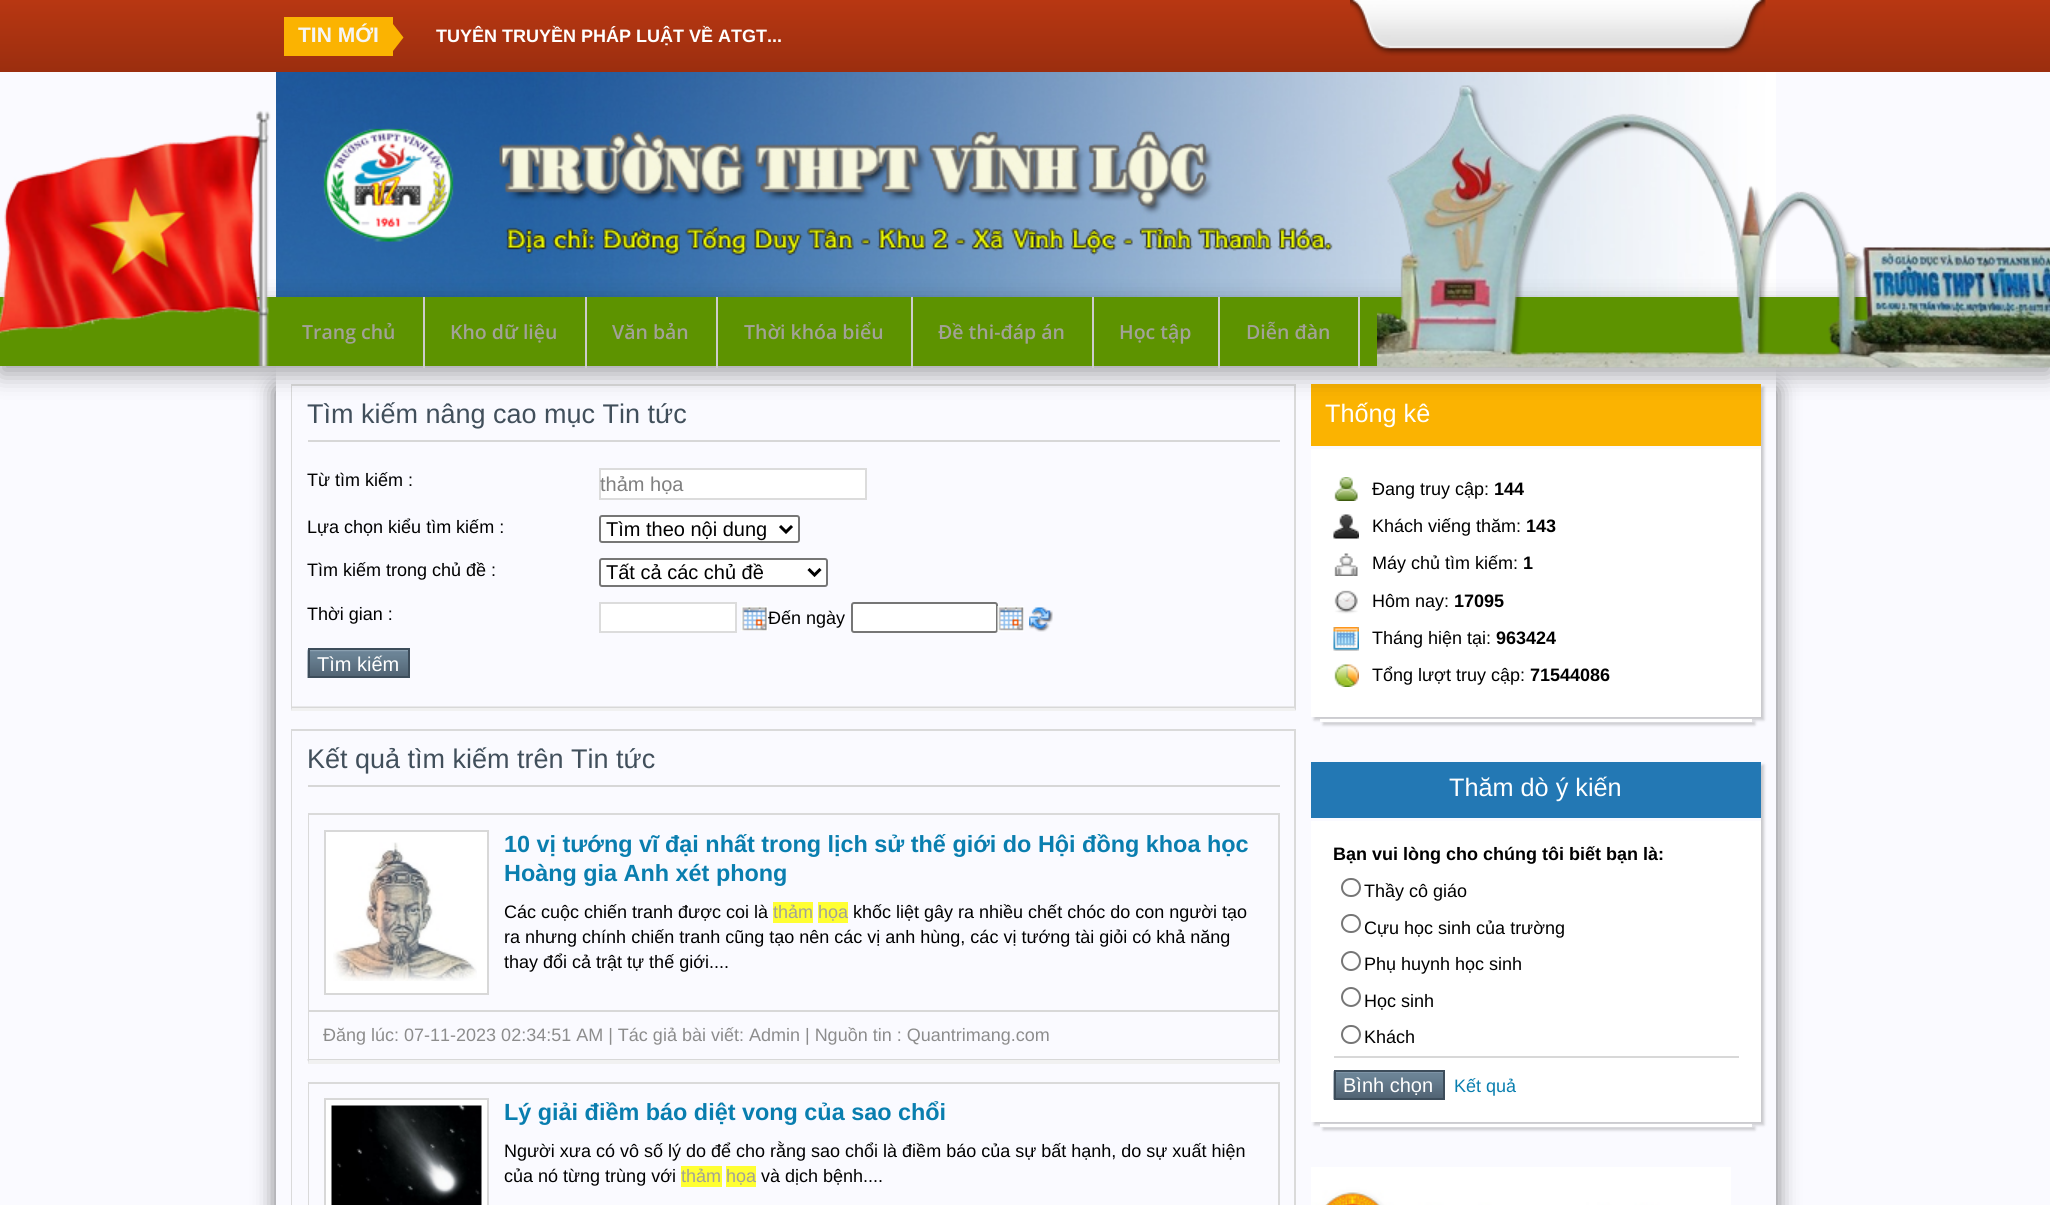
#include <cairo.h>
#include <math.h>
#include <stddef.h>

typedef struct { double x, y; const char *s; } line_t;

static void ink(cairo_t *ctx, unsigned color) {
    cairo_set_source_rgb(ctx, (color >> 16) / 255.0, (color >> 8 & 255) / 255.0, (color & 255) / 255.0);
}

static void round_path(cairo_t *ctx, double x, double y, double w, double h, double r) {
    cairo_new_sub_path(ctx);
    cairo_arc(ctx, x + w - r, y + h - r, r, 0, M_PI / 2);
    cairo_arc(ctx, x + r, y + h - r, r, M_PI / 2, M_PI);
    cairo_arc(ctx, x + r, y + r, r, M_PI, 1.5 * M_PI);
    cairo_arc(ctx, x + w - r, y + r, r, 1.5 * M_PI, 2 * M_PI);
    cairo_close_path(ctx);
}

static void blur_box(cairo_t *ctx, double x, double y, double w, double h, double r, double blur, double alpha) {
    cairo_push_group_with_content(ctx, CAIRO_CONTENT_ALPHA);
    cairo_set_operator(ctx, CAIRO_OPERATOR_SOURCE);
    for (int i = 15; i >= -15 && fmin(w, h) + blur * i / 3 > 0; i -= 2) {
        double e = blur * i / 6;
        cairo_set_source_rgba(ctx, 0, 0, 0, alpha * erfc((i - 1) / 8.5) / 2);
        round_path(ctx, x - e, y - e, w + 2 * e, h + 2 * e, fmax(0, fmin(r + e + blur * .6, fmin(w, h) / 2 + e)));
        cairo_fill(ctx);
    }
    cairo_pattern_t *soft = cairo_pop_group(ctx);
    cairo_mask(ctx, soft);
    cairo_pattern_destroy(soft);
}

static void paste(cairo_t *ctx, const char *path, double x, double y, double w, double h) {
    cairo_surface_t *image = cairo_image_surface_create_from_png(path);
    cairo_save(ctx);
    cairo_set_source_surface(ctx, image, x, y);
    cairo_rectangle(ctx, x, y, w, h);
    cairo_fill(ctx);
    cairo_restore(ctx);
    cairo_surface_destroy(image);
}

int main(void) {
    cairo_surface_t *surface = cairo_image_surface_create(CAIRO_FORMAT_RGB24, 2050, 1205);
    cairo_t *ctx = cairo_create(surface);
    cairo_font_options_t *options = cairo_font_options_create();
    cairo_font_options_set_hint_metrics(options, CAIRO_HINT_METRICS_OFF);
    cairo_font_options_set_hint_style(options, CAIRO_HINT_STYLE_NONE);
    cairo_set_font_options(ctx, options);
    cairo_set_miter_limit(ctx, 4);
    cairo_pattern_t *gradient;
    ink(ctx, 0xFAFAFF);
    cairo_paint(ctx);
    gradient = cairo_pattern_create_linear(1025, 0, 1025, 72);
    cairo_pattern_add_color_stop_rgba(gradient, 0, 0.722, 0.216, 0.071, 1);
    cairo_pattern_add_color_stop_rgba(gradient, 1, 0.608, 0.18, 0.059, 1);
    cairo_set_source(ctx, gradient);
    cairo_pattern_destroy(gradient);
    cairo_rectangle(ctx, 0, 0, 2050, 72);
    cairo_fill(ctx);
    ink(ctx, 0xFBB301);
    cairo_rectangle(ctx, 284, 17, 109, 39);
    cairo_fill(ctx);
    cairo_select_font_face(ctx, "Liberation Sans", CAIRO_FONT_SLANT_NORMAL, CAIRO_FONT_WEIGHT_BOLD);
    cairo_set_font_size(ctx, 21);
    ink(ctx, 0xF5F5F5);
    cairo_move_to(ctx, 298, 42);
    cairo_show_text(ctx, "TIN MỚI");
    ink(ctx, 0xFBB301);
    cairo_new_path(ctx);
    cairo_move_to(ctx, 393, 51);
    cairo_line_to(ctx, 393, 24);
    cairo_line_to(ctx, 403.5, 37.5);
    cairo_close_path(ctx);
    cairo_fill(ctx);
    cairo_set_font_size(ctx, 18);
    ink(ctx, 0xFFFFFF);
    cairo_move_to(ctx, 436, 42);
    cairo_show_text(ctx, "TUYÊN TRUYỀN PHÁP LUẬT VỀ ATGT...");
    paste(ctx, "media/1.png", 1350, 0, 416, 56);
    paste(ctx, "media/2.png", 276, 72, 1500, 225);
    cairo_save(ctx);
    cairo_set_fill_rule(ctx, CAIRO_FILL_RULE_EVEN_ODD);
    cairo_new_path(ctx);
    cairo_move_to(ctx, 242, 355);
    cairo_line_to(ctx, 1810, 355);
    cairo_line_to(ctx, 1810, 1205);
    cairo_line_to(ctx, 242, 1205);
    cairo_close_path(ctx);
    cairo_move_to(ctx, 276, 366);
    cairo_line_to(ctx, 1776, 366);
    cairo_line_to(ctx, 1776, 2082);
    cairo_line_to(ctx, 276, 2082);
    cairo_close_path(ctx);
    cairo_clip(ctx);
    ink(ctx, 0x000000);
    blur_box(ctx, 276, 389, 1500, 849, 0, 11, 0.55);
    cairo_restore(ctx);
    ink(ctx, 0xDADADA);
    cairo_rectangle(ctx, 291, 384, 1005, 2);
    cairo_fill(ctx);
    cairo_new_path(ctx);
    cairo_move_to(ctx, 1296, 384);
    cairo_line_to(ctx, 1296, 711);
    cairo_line_to(ctx, 1294, 708);
    cairo_line_to(ctx, 1294, 386);
    cairo_close_path(ctx);
    cairo_fill(ctx);
    ink(ctx, 0xF1F1F1);
    cairo_new_path(ctx);
    cairo_move_to(ctx, 1296, 711);
    cairo_line_to(ctx, 291, 711);
    cairo_line_to(ctx, 292, 708);
    cairo_line_to(ctx, 1294, 708);
    cairo_close_path(ctx);
    cairo_fill(ctx);
    ink(ctx, 0xDADADA);
    cairo_new_path(ctx);
    cairo_move_to(ctx, 291, 711);
    cairo_line_to(ctx, 291, 384);
    cairo_line_to(ctx, 292, 386);
    cairo_line_to(ctx, 292, 708);
    cairo_close_path(ctx);
    cairo_fill(ctx);
    cairo_save(ctx);
    cairo_set_fill_rule(ctx, CAIRO_FILL_RULE_EVEN_ODD);
    cairo_new_path(ctx);
    cairo_move_to(ctx, 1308, 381);
    cairo_line_to(ctx, 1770, 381);
    cairo_line_to(ctx, 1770, 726);
    cairo_line_to(ctx, 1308, 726);
    cairo_close_path(ctx);
    cairo_move_to(ctx, 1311, 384);
    cairo_line_to(ctx, 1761, 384);
    cairo_line_to(ctx, 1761, 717);
    cairo_line_to(ctx, 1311, 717);
    cairo_close_path(ctx);
    cairo_clip(ctx);
    ink(ctx, 0x000000);
    blur_box(ctx, 1314, 387, 450, 333, 0, 1.5, 0.2);
    cairo_restore(ctx);
    ink(ctx, 0xFBB301);
    cairo_rectangle(ctx, 1311, 384, 450, 62);
    cairo_fill(ctx);
    ink(ctx, 0x000000);
    blur_box(ctx, 0, 305, 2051, 69, 0, 12, 0.35);
    ink(ctx, 0x5D9300);
    cairo_rectangle(ctx, 0, 297, 2050, 69);
    cairo_fill(ctx);
    paste(ctx, "media/3.png", 0, 110, 271, 256);
    ink(ctx, 0xCCCCCC);
    cairo_rectangle(ctx, 423, 297, 2, 71);
    cairo_fill(ctx);
    cairo_select_font_face(ctx, "Open Sans SemiBold", CAIRO_FONT_SLANT_NORMAL, CAIRO_FONT_WEIGHT_NORMAL);
    cairo_set_font_size(ctx, 19.5);
    ink(ctx, 0xA2A297);
    cairo_move_to(ctx, 302, 339);
    cairo_show_text(ctx, "Trang chủ");
    ink(ctx, 0xCCCCCC);
    cairo_rectangle(ctx, 585, 297, 2, 71);
    cairo_fill(ctx);
    ink(ctx, 0xA2A297);
    cairo_move_to(ctx, 450, 339);
    cairo_show_text(ctx, "Kho dữ liệu");
    ink(ctx, 0xCCCCCC);
    cairo_rectangle(ctx, 716, 297, 2, 71);
    cairo_fill(ctx);
    ink(ctx, 0xA2A297);
    cairo_move_to(ctx, 612, 339);
    cairo_show_text(ctx, "Văn bản");
    ink(ctx, 0xCCCCCC);
    cairo_rectangle(ctx, 911, 297, 2, 71);
    cairo_fill(ctx);
    ink(ctx, 0xA2A297);
    cairo_move_to(ctx, 744, 339);
    cairo_show_text(ctx, "Thời khóa biểu");
    ink(ctx, 0xCCCCCC);
    cairo_rectangle(ctx, 1092, 297, 2, 71);
    cairo_fill(ctx);
    ink(ctx, 0xA2A297);
    cairo_move_to(ctx, 938, 339);
    cairo_show_text(ctx, "Đề thi-đáp án");
    ink(ctx, 0xCCCCCC);
    cairo_rectangle(ctx, 1218, 297, 2, 71);
    cairo_fill(ctx);
    ink(ctx, 0xA2A297);
    cairo_move_to(ctx, 1119, 339);
    cairo_show_text(ctx, "Học tập");
    ink(ctx, 0xCCCCCC);
    cairo_rectangle(ctx, 1358, 297, 2, 71);
    cairo_fill(ctx);
    ink(ctx, 0xA2A297);
    cairo_move_to(ctx, 1246, 339);
    cairo_show_text(ctx, "Diễn đàn");
    paste(ctx, "media/4.png", 1377, 85, 673, 283);
    paste(ctx, "media/5.png", 292, 706, 1002, 2);
    ink(ctx, 0xD7D7D7);
    cairo_rectangle(ctx, 308, 440, 972, 2);
    cairo_fill(ctx);
    cairo_select_font_face(ctx, "Liberation Sans", CAIRO_FONT_SLANT_NORMAL, CAIRO_FONT_WEIGHT_NORMAL);
    cairo_set_font_size(ctx, 27);
    ink(ctx, 0x414F5B);
    cairo_move_to(ctx, 307, 423);
    cairo_show_text(ctx, "Tìm kiếm nâng cao mục Tin tức");
    cairo_set_font_size(ctx, 18);
    ink(ctx, 0x000000);
    cairo_move_to(ctx, 307, 486);
    cairo_show_text(ctx, "Từ tìm kiếm :");
    ink(ctx, 0xFFFFFF);
    cairo_rectangle(ctx, 600, 469, 266, 30);
    cairo_fill_preserve(ctx);
    ink(ctx, 0xDCDCDC);
    cairo_stroke(ctx);
    cairo_set_font_size(ctx, 20);
    ink(ctx, 0x808080);
    cairo_move_to(ctx, 600, 491);
    cairo_show_text(ctx, "thảm họa");
    cairo_set_font_size(ctx, 18);
    ink(ctx, 0x000000);
    cairo_move_to(ctx, 307, 533);
    cairo_show_text(ctx, "Lựa chọn kiểu tìm kiếm :");
    ink(ctx, 0xFFFFFF);
    round_path(ctx, 600, 516, 199, 26, 2);
    cairo_fill_preserve(ctx);
    ink(ctx, 0x767676);
    cairo_stroke(ctx);
    cairo_new_path(ctx);
    cairo_move_to(ctx, 780, 526);
    cairo_line_to(ctx, 786, 532);
    cairo_line_to(ctx, 792, 526);
    ink(ctx, 0x000000);
    cairo_set_line_width(ctx, 3);
    cairo_stroke(ctx);
    cairo_set_font_size(ctx, 20);
    cairo_move_to(ctx, 606, 536);
    cairo_show_text(ctx, "Tìm theo nội dung");
    cairo_set_font_size(ctx, 18);
    cairo_move_to(ctx, 307, 576);
    cairo_show_text(ctx, "Tìm kiếm trong chủ đề :");
    ink(ctx, 0xFFFFFF);
    round_path(ctx, 600, 559, 227, 27, 2);
    cairo_fill_preserve(ctx);
    ink(ctx, 0x767676);
    cairo_set_line_width(ctx, 2);
    cairo_stroke(ctx);
    cairo_new_path(ctx);
    cairo_move_to(ctx, 808.5, 569);
    cairo_line_to(ctx, 814.5, 575);
    cairo_line_to(ctx, 820.5, 569);
    ink(ctx, 0x000000);
    cairo_set_line_width(ctx, 3);
    cairo_stroke(ctx);
    cairo_set_font_size(ctx, 20);
    cairo_move_to(ctx, 606, 579);
    cairo_show_text(ctx, "Tất cả các chủ đề");
    cairo_set_font_size(ctx, 18);
    cairo_move_to(ctx, 307, 620);
    cairo_show_text(ctx, "Thời gian :");
    ink(ctx, 0xFFFFFF);
    cairo_rectangle(ctx, 600, 603, 136, 29);
    cairo_fill_preserve(ctx);
    ink(ctx, 0xDCDCDC);
    cairo_set_line_width(ctx, 2);
    cairo_stroke(ctx);
    paste(ctx, "media/6.png", 741, 606, 27, 25);
    ink(ctx, 0x000000);
    cairo_move_to(ctx, 768, 624);
    cairo_show_text(ctx, "Đến ngày");
    ink(ctx, 0xFFFFFF);
    round_path(ctx, 852, 603, 145, 29, 2);
    cairo_fill_preserve(ctx);
    ink(ctx, 0x767676);
    cairo_stroke(ctx);
    paste(ctx, "media/7.png", 997, 606, 27, 26);
    paste(ctx, "media/8.png", 1029, 607, 24, 25);
    paste(ctx, "media/9.png", 307, 649, 101, 29);
    cairo_rectangle(ctx, 309, 649, 100, 28);
    ink(ctx, 0x3D4D5B);
    cairo_stroke(ctx);
    cairo_set_font_size(ctx, 20);
    ink(ctx, 0xFFFFFF);
    cairo_move_to(ctx, 317, 671);
    cairo_show_text(ctx, "Tìm kiếm");
    ink(ctx, 0xDADADA);
    cairo_rectangle(ctx, 291, 729, 1005, 2);
    cairo_fill(ctx);
    cairo_new_path(ctx);
    cairo_move_to(ctx, 1296, 729);
    cairo_line_to(ctx, 1296, 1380);
    cairo_line_to(ctx, 1294, 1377);
    cairo_line_to(ctx, 1294, 730);
    cairo_close_path(ctx);
    cairo_fill(ctx);
    cairo_new_path(ctx);
    cairo_move_to(ctx, 291, 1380);
    cairo_line_to(ctx, 291, 729);
    cairo_line_to(ctx, 292, 730);
    cairo_line_to(ctx, 292, 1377);
    cairo_close_path(ctx);
    cairo_fill(ctx);
    ink(ctx, 0xD7D7D7);
    cairo_rectangle(ctx, 308, 785, 972, 2);
    cairo_fill(ctx);
    cairo_set_font_size(ctx, 27);
    ink(ctx, 0x414F5B);
    cairo_move_to(ctx, 307, 768);
    cairo_show_text(ctx, "Kết quả tìm kiếm trên Tin tức");
    paste(ctx, "media/10.png", 307, 1059, 972, 2);
    ink(ctx, 0xDADADA);
    cairo_rectangle(ctx, 308, 813, 972, 2);
    cairo_fill(ctx);
    cairo_new_path(ctx);
    cairo_move_to(ctx, 1280, 813);
    cairo_line_to(ctx, 1280, 1064);
    cairo_line_to(ctx, 1278, 1060);
    cairo_line_to(ctx, 1278, 814);
    cairo_close_path(ctx);
    cairo_fill(ctx);
    ink(ctx, 0xF1F1F1);
    cairo_new_path(ctx);
    cairo_move_to(ctx, 1280, 1064);
    cairo_line_to(ctx, 308, 1064);
    cairo_line_to(ctx, 309, 1060);
    cairo_line_to(ctx, 1278, 1060);
    cairo_close_path(ctx);
    cairo_fill(ctx);
    ink(ctx, 0xDADADA);
    cairo_new_path(ctx);
    cairo_move_to(ctx, 308, 1064);
    cairo_line_to(ctx, 308, 813);
    cairo_line_to(ctx, 309, 814);
    cairo_line_to(ctx, 309, 1060);
    cairo_close_path(ctx);
    cairo_fill(ctx);
    ink(ctx, 0xFFFFFF);
    cairo_rectangle(ctx, 325, 831, 163, 163);
    cairo_fill_preserve(ctx);
    ink(ctx, 0xD8D8D8);
    cairo_stroke(ctx);
    paste(ctx, "media/11.png", 333, 842, 144, 139);
    cairo_select_font_face(ctx, "Liberation Sans", CAIRO_FONT_SLANT_NORMAL, CAIRO_FONT_WEIGHT_BOLD);
    cairo_set_font_size(ctx, 23.4);
    ink(ctx, 0x097EAF);
    cairo_move_to(ctx, 504, 852);
    cairo_show_text(ctx, "10 vị tướng vĩ đại nhất trong lịch sử thế giới do Hội đồng khoa học");
    cairo_move_to(ctx, 504, 881);
    cairo_show_text(ctx, "Hoàng gia Anh xét phong");
    cairo_select_font_face(ctx, "Liberation Sans", CAIRO_FONT_SLANT_NORMAL, CAIRO_FONT_WEIGHT_NORMAL);
    cairo_set_font_size(ctx, 18);
    ink(ctx, 0x000000);
    cairo_move_to(ctx, 504, 918);
    cairo_show_text(ctx, "Các cuộc chiến tranh được coi là");
    ink(ctx, 0xFFFF33);
    cairo_rectangle(ctx, 773, 902, 40, 21);
    cairo_fill(ctx);
    ink(ctx, 0xA2A297);
    cairo_move_to(ctx, 773, 918);
    cairo_show_text(ctx, "thảm");
    ink(ctx, 0xFFFF33);
    cairo_rectangle(ctx, 818, 902, 30, 21);
    cairo_fill(ctx);
    ink(ctx, 0xA2A297);
    cairo_move_to(ctx, 818, 918);
    cairo_show_text(ctx, "họa");
    ink(ctx, 0x000000);
    {
        static const line_t items[] = {
            {853, 918, "khốc liệt gây ra nhiều chết chóc do con người tạo"},
            {504, 943, "ra nhưng chính chiến tranh cũng tạo nên các vị anh hùng, các vị tướng tài giỏi có khả năng"},
            {504, 968, "thay đổi cả trật tự thế giới...."},
        };
        for (size_t i = 0; i < sizeof items / sizeof *items; i++) {
            cairo_move_to(ctx, items[i].x, items[i].y);
            cairo_show_text(ctx, items[i].s);
        }
    }
    ink(ctx, 0xD8D8D8);
    cairo_rectangle(ctx, 309, 1010, 969, 2);
    cairo_fill(ctx);
    ink(ctx, 0x8C8C8C);
    cairo_move_to(ctx, 323, 1041);
    cairo_show_text(ctx, "Đăng lúc: 07-11-2023 02:34:51 AM | Tác giả bài viết: Admin | Nguồn tin : Quantrimang.com");
    ink(ctx, 0xDADADA);
    cairo_rectangle(ctx, 308, 1082, 972, 2);
    cairo_fill(ctx);
    cairo_new_path(ctx);
    cairo_move_to(ctx, 1280, 1082);
    cairo_line_to(ctx, 1280, 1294);
    cairo_line_to(ctx, 1278, 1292);
    cairo_line_to(ctx, 1278, 1083);
    cairo_close_path(ctx);
    cairo_fill(ctx);
    cairo_new_path(ctx);
    cairo_move_to(ctx, 308, 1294);
    cairo_line_to(ctx, 308, 1082);
    cairo_line_to(ctx, 309, 1083);
    cairo_line_to(ctx, 309, 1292);
    cairo_close_path(ctx);
    cairo_fill(ctx);
    ink(ctx, 0xFFFFFF);
    cairo_rectangle(ctx, 325, 1099, 163, 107);
    cairo_fill_preserve(ctx);
    ink(ctx, 0xD8D8D8);
    cairo_stroke(ctx);
    paste(ctx, "media/12.png", 331, 1105, 151, 100);
    cairo_select_font_face(ctx, "Liberation Sans", CAIRO_FONT_SLANT_NORMAL, CAIRO_FONT_WEIGHT_BOLD);
    cairo_set_font_size(ctx, 23.4);
    ink(ctx, 0x097EAF);
    cairo_move_to(ctx, 504, 1120);
    cairo_show_text(ctx, "Lý giải điềm báo diệt vong của sao chổi");
    cairo_select_font_face(ctx, "Liberation Sans", CAIRO_FONT_SLANT_NORMAL, CAIRO_FONT_WEIGHT_NORMAL);
    cairo_set_font_size(ctx, 18);
    ink(ctx, 0x000000);
    cairo_move_to(ctx, 504, 1157);
    cairo_show_text(ctx, "Người xưa có vô số lý do để cho rằng sao chổi là điềm báo của sự bất hạnh, do sự xuất hiện");
    cairo_move_to(ctx, 504, 1182);
    cairo_show_text(ctx, "của nó từng trùng với");
    ink(ctx, 0xFFFF33);
    cairo_rectangle(ctx, 681, 1166, 41, 21);
    cairo_fill(ctx);
    ink(ctx, 0xA2A297);
    cairo_move_to(ctx, 681, 1182);
    cairo_show_text(ctx, "thảm");
    ink(ctx, 0xFFFF33);
    cairo_rectangle(ctx, 726, 1166, 30, 21);
    cairo_fill(ctx);
    ink(ctx, 0xA2A297);
    cairo_move_to(ctx, 726, 1182);
    cairo_show_text(ctx, "họa");
    ink(ctx, 0x000000);
    cairo_move_to(ctx, 761, 1182);
    cairo_show_text(ctx, "và dịch bệnh....");
    cairo_set_font_size(ctx, 25.25);
    ink(ctx, 0xFFFFFF);
    cairo_move_to(ctx, 1325, 422);
    cairo_show_text(ctx, "Thống kê");
    ink(ctx, 0x000000);
    blur_box(ctx, 1323, 722, 432, 3, 0, 1.5, 0.2);
    ink(ctx, 0xFFFFFF);
    cairo_rectangle(ctx, 1311, 449, 450, 268);
    cairo_fill(ctx);
    paste(ctx, "media/13.png", 1334, 477, 24, 24);
    cairo_set_font_size(ctx, 18);
    ink(ctx, 0x000000);
    cairo_move_to(ctx, 1372, 495);
    cairo_show_text(ctx, "Đang truy cập:");
    cairo_select_font_face(ctx, "Liberation Sans", CAIRO_FONT_SLANT_NORMAL, CAIRO_FONT_WEIGHT_BOLD);
    cairo_move_to(ctx, 1494, 495);
    cairo_show_text(ctx, "144");
    paste(ctx, "media/14.png", 1333, 514, 26, 25);
    cairo_select_font_face(ctx, "Liberation Sans", CAIRO_FONT_SLANT_NORMAL, CAIRO_FONT_WEIGHT_NORMAL);
    cairo_move_to(ctx, 1372, 532);
    cairo_show_text(ctx, "Khách viếng thăm:");
    cairo_select_font_face(ctx, "Liberation Sans", CAIRO_FONT_SLANT_NORMAL, CAIRO_FONT_WEIGHT_BOLD);
    cairo_move_to(ctx, 1526, 532);
    cairo_show_text(ctx, "143");
    paste(ctx, "media/15.png", 1334, 553, 24, 23);
    cairo_select_font_face(ctx, "Liberation Sans", CAIRO_FONT_SLANT_NORMAL, CAIRO_FONT_WEIGHT_NORMAL);
    cairo_move_to(ctx, 1372, 569);
    cairo_show_text(ctx, "Máy chủ tìm kiếm:");
    cairo_select_font_face(ctx, "Liberation Sans", CAIRO_FONT_SLANT_NORMAL, CAIRO_FONT_WEIGHT_BOLD);
    cairo_move_to(ctx, 1523, 569);
    cairo_show_text(ctx, "1");
    paste(ctx, "media/16.png", 1334, 590, 24, 24);
    cairo_select_font_face(ctx, "Liberation Sans", CAIRO_FONT_SLANT_NORMAL, CAIRO_FONT_WEIGHT_NORMAL);
    cairo_move_to(ctx, 1372, 607);
    cairo_show_text(ctx, "Hôm nay:");
    cairo_select_font_face(ctx, "Liberation Sans", CAIRO_FONT_SLANT_NORMAL, CAIRO_FONT_WEIGHT_BOLD);
    cairo_move_to(ctx, 1454, 607);
    cairo_show_text(ctx, "17095");
    paste(ctx, "media/17.png", 1333, 627, 26, 24);
    cairo_select_font_face(ctx, "Liberation Sans", CAIRO_FONT_SLANT_NORMAL, CAIRO_FONT_WEIGHT_NORMAL);
    cairo_move_to(ctx, 1372, 644);
    cairo_show_text(ctx, "Tháng hiện tại:");
    cairo_select_font_face(ctx, "Liberation Sans", CAIRO_FONT_SLANT_NORMAL, CAIRO_FONT_WEIGHT_BOLD);
    cairo_move_to(ctx, 1496, 644);
    cairo_show_text(ctx, "963424");
    paste(ctx, "media/18.png", 1334, 664, 25, 23);
    cairo_select_font_face(ctx, "Liberation Sans", CAIRO_FONT_SLANT_NORMAL, CAIRO_FONT_WEIGHT_NORMAL);
    cairo_move_to(ctx, 1372, 681);
    cairo_show_text(ctx, "Tổng lượt truy cập:");
    cairo_select_font_face(ctx, "Liberation Sans", CAIRO_FONT_SLANT_NORMAL, CAIRO_FONT_WEIGHT_BOLD);
    cairo_move_to(ctx, 1530, 681);
    cairo_show_text(ctx, "71544086");
    ink(ctx, 0xFFFFFF);
    cairo_rectangle(ctx, 1320, 719, 432, 3);
    cairo_fill(ctx);
    cairo_save(ctx);
    cairo_set_fill_rule(ctx, CAIRO_FILL_RULE_EVEN_ODD);
    cairo_new_path(ctx);
    cairo_move_to(ctx, 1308, 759);
    cairo_line_to(ctx, 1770, 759);
    cairo_line_to(ctx, 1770, 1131);
    cairo_line_to(ctx, 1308, 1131);
    cairo_close_path(ctx);
    cairo_move_to(ctx, 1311, 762);
    cairo_line_to(ctx, 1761, 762);
    cairo_line_to(ctx, 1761, 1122);
    cairo_line_to(ctx, 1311, 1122);
    cairo_close_path(ctx);
    cairo_clip(ctx);
    ink(ctx, 0x000000);
    blur_box(ctx, 1314, 765, 450, 360, 0, 1.5, 0.2);
    cairo_restore(ctx);
    ink(ctx, 0x2378B4);
    cairo_rectangle(ctx, 1311, 762, 450, 56);
    cairo_fill(ctx);
    cairo_select_font_face(ctx, "Liberation Sans", CAIRO_FONT_SLANT_NORMAL, CAIRO_FONT_WEIGHT_NORMAL);
    cairo_set_font_size(ctx, 25.25);
    ink(ctx, 0xFFFFFF);
    cairo_move_to(ctx, 1449, 796);
    cairo_show_text(ctx, "Thăm dò ý kiến");
    ink(ctx, 0x000000);
    blur_box(ctx, 1323, 1127, 432, 3, 0, 1.5, 0.2);
    ink(ctx, 0xFFFFFF);
    cairo_rectangle(ctx, 1311, 821, 450, 301);
    cairo_fill(ctx);
    cairo_select_font_face(ctx, "Liberation Sans", CAIRO_FONT_SLANT_NORMAL, CAIRO_FONT_WEIGHT_BOLD);
    cairo_set_font_size(ctx, 18);
    ink(ctx, 0x000000);
    cairo_move_to(ctx, 1333, 860);
    cairo_show_text(ctx, "Bạn vui lòng cho chúng tôi biết bạn là:");
    round_path(ctx, 1342, 879, 18, 17, 8.5);
    ink(ctx, 0x767676);
    cairo_stroke(ctx);
    cairo_select_font_face(ctx, "Liberation Sans", CAIRO_FONT_SLANT_NORMAL, CAIRO_FONT_WEIGHT_NORMAL);
    ink(ctx, 0x000000);
    cairo_move_to(ctx, 1364, 897);
    cairo_show_text(ctx, "Thầy cô giáo");
    round_path(ctx, 1342, 915, 18, 17, 8.5);
    ink(ctx, 0x767676);
    cairo_stroke(ctx);
    ink(ctx, 0x000000);
    cairo_move_to(ctx, 1364, 934);
    cairo_show_text(ctx, "Cựu học sinh của trường");
    cairo_new_path(ctx);
    cairo_arc(ctx, 1351, 961, 9, 0, 2 * M_PI);
    ink(ctx, 0x767676);
    cairo_stroke(ctx);
    ink(ctx, 0x000000);
    cairo_move_to(ctx, 1364, 970);
    cairo_show_text(ctx, "Phụ huynh học sinh");
    cairo_new_path(ctx);
    cairo_arc(ctx, 1351, 997, 9, 0, 2 * M_PI);
    ink(ctx, 0x767676);
    cairo_stroke(ctx);
    ink(ctx, 0x000000);
    cairo_move_to(ctx, 1364, 1007);
    cairo_show_text(ctx, "Học sinh");
    round_path(ctx, 1342, 1026, 18, 17, 8.5);
    ink(ctx, 0x767676);
    cairo_stroke(ctx);
    ink(ctx, 0x000000);
    cairo_move_to(ctx, 1364, 1043);
    cairo_show_text(ctx, "Khách");
    ink(ctx, 0xD8D8D8);
    cairo_rectangle(ctx, 1334, 1056, 405, 2);
    cairo_fill(ctx);
    paste(ctx, "media/19.png", 1333, 1071, 110, 29);
    cairo_rectangle(ctx, 1335, 1071, 109, 28);
    ink(ctx, 0x3D4D5B);
    cairo_stroke(ctx);
    cairo_set_font_size(ctx, 20);
    ink(ctx, 0xFFFFFF);
    cairo_move_to(ctx, 1343, 1092);
    cairo_show_text(ctx, "Bình chọn");
    cairo_set_font_size(ctx, 18);
    ink(ctx, 0x097EAF);
    cairo_move_to(ctx, 1454, 1092);
    cairo_show_text(ctx, "Kết quả");
    ink(ctx, 0xFFFFFF);
    cairo_rectangle(ctx, 1320, 1124, 432, 3);
    cairo_fill(ctx);
    paste(ctx, "media/20.png", 1311, 1167, 420, 38);
    cairo_surface_write_to_png(surface, "image.png");
    cairo_font_options_destroy(options);
    cairo_destroy(ctx);
    cairo_surface_destroy(surface);
    return 0;
}
